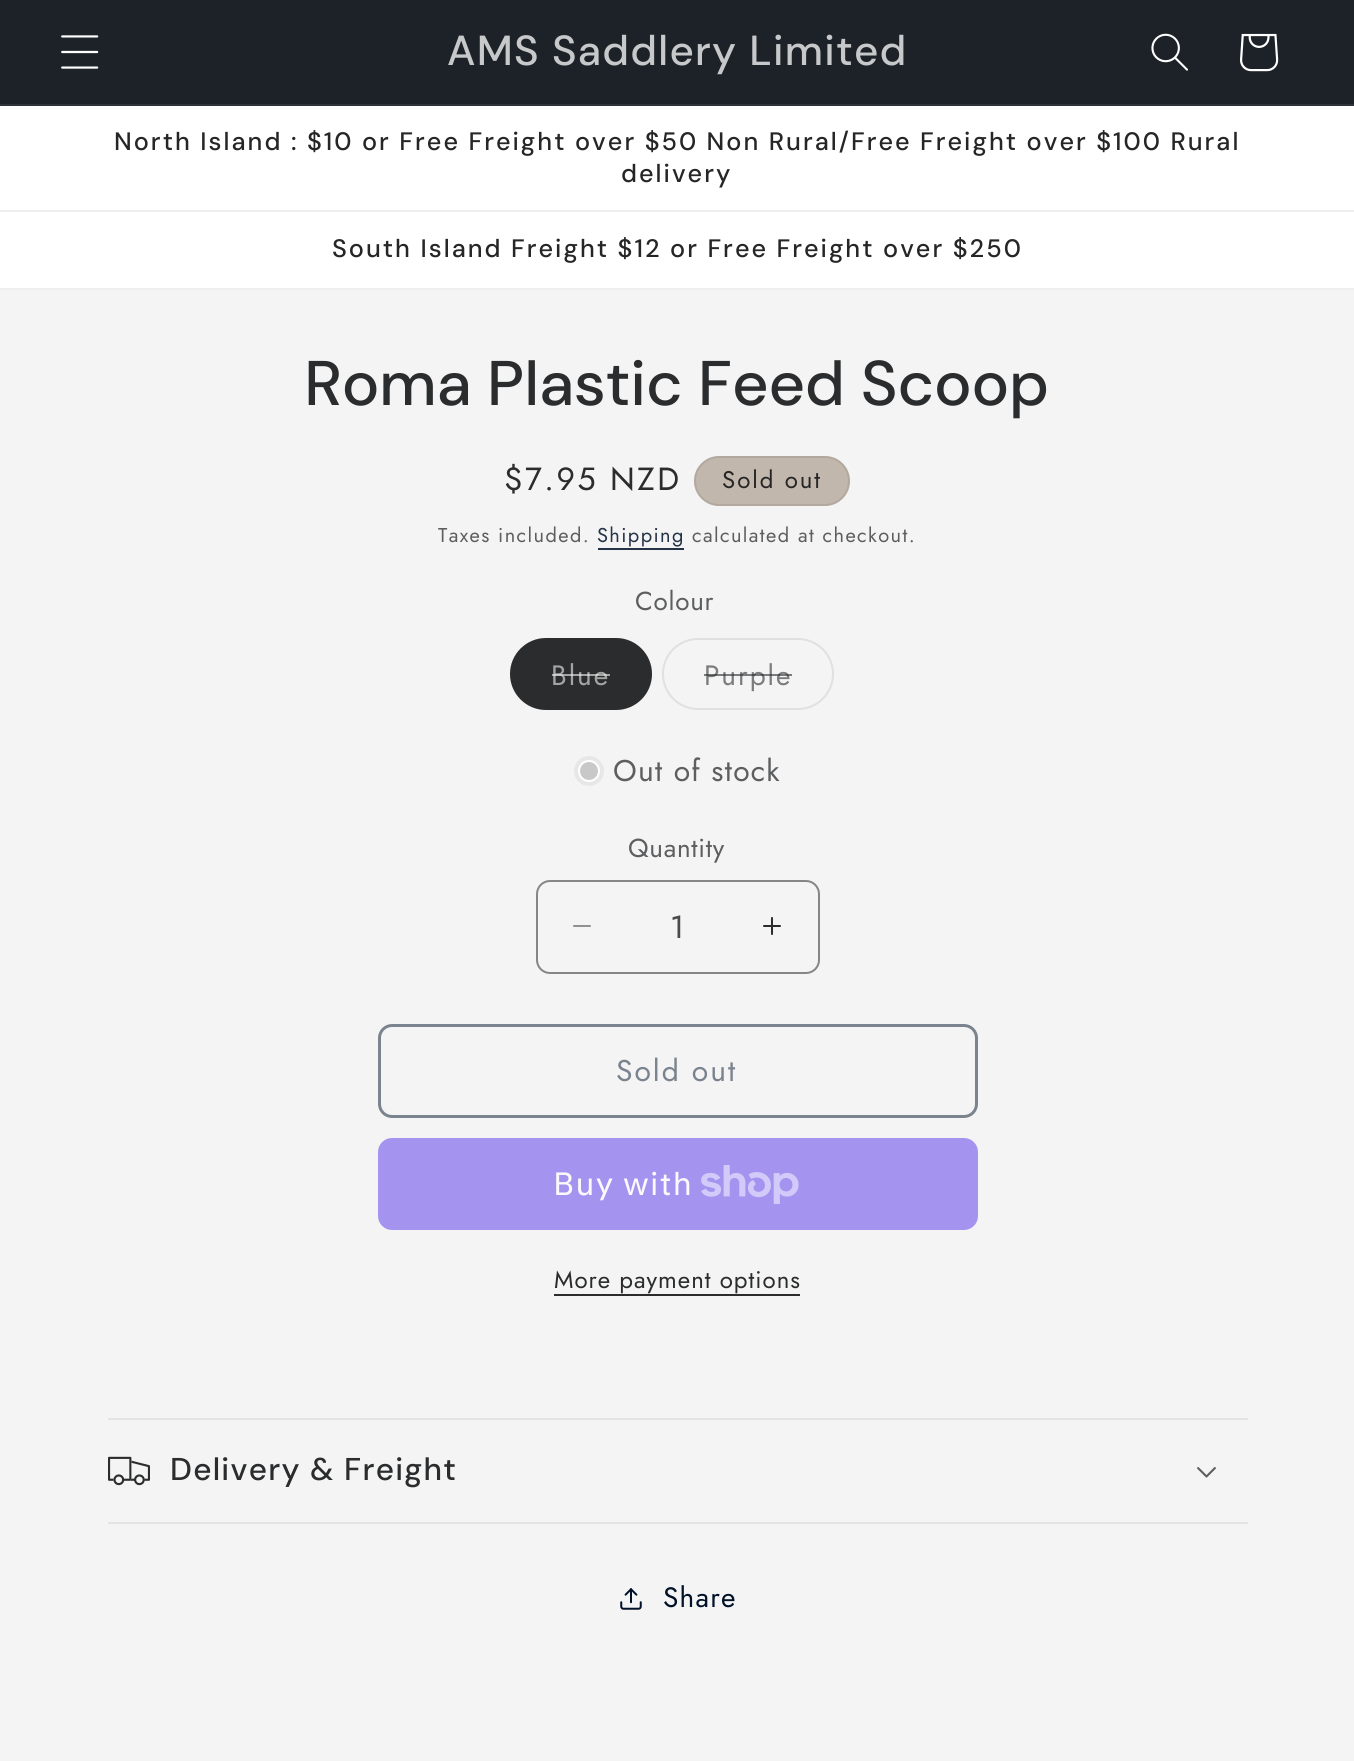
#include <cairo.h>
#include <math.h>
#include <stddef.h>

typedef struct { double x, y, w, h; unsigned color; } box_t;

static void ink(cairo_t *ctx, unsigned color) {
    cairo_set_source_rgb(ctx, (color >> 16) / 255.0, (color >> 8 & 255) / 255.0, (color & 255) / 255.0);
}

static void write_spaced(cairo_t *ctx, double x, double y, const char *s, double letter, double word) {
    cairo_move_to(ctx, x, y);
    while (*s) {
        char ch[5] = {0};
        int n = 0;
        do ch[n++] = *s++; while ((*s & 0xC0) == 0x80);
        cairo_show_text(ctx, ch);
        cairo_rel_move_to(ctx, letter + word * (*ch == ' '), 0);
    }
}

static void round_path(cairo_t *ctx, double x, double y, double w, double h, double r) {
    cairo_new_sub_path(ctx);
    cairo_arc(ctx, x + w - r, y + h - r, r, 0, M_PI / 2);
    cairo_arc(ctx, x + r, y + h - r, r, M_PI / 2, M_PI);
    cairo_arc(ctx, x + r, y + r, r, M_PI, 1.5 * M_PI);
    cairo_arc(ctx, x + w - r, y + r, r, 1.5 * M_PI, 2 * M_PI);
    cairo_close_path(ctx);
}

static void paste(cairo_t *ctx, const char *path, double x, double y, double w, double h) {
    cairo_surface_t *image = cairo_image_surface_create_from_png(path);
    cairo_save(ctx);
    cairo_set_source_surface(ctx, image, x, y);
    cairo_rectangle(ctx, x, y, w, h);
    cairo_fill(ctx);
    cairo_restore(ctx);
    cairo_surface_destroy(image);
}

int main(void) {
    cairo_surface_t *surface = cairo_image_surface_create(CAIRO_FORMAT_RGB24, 1354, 1761);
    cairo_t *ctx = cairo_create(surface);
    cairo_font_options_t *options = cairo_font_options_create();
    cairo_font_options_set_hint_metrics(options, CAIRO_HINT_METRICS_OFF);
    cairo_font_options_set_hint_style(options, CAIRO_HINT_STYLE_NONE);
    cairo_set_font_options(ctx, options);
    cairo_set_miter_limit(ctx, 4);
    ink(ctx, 0xF4F4F4);
    cairo_paint(ctx);
    ink(ctx, 0x1C2228);
    cairo_rectangle(ctx, 0, 0, 1354, 104);
    cairo_fill(ctx);
    ink(ctx, 0x2E3439);
    cairo_rectangle(ctx, 0, 104, 1354, 2);
    cairo_fill(ctx);
    paste(ctx, "media/1.png", 61, 35, 38, 34);
    cairo_select_font_face(ctx, "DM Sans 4 Medium", CAIRO_FONT_SLANT_NORMAL, CAIRO_FONT_WEIGHT_NORMAL);
    cairo_set_font_size(ctx, 42);
    ink(ctx, 0xC6C8C9);
    write_spaced(ctx, 447, 65, "AMS Saddlery Limited", 1.25, 0);
    paste(ctx, "media/2.png", 1151, 33, 37, 38);
    paste(ctx, "media/3.png", 1240, 33, 39, 39);
    ink(ctx, 0xFFFFFF);
    cairo_rectangle(ctx, 0, 106, 1354, 104);
    cairo_fill(ctx);
    ink(ctx, 0xEEEEEE);
    cairo_rectangle(ctx, 0, 210, 1354, 2);
    cairo_fill(ctx);
    cairo_select_font_face(ctx, "DM Sans Medium", CAIRO_FONT_SLANT_NORMAL, CAIRO_FONT_WEIGHT_NORMAL);
    cairo_set_font_size(ctx, 25.2);
    ink(ctx, 0x262626);
    write_spaced(ctx, 114, 150, "North Island : $10 or Free Freight over $50 Non Rural/Free Freight over $100 Rural", 2, 0);
    write_spaced(ctx, 621, 182, "delivery", 2, 0);
    ink(ctx, 0xFFFFFF);
    cairo_rectangle(ctx, 0, 212, 1354, 76);
    cairo_fill(ctx);
    ink(ctx, 0xEEEEEE);
    cairo_rectangle(ctx, 0, 288, 1354, 2);
    cairo_fill(ctx);
    ink(ctx, 0x262626);
    write_spaced(ctx, 332, 257, "South Island Freight $12 or Free Freight over $250", 2, 0);
    cairo_select_font_face(ctx, "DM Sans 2 Medium", CAIRO_FONT_SLANT_NORMAL, CAIRO_FONT_WEIGHT_NORMAL);
    cairo_set_font_size(ctx, 63);
    ink(ctx, 0x2B2C2D);
    write_spaced(ctx, 305, 405, "Roma Plastic Feed Scoop", 1.25, 0);
    cairo_select_font_face(ctx, "Jost", CAIRO_FONT_SLANT_NORMAL, CAIRO_FONT_WEIGHT_NORMAL);
    cairo_set_font_size(ctx, 32);
    write_spaced(ctx, 504, 490, "$7.95 NZD", 2.5, 0);
    ink(ctx, 0xC2B7AC);
    round_path(ctx, 694, 456, 156, 50, 25);
    cairo_fill(ctx);
    round_path(ctx, 695, 457, 154, 48, 24);
    cairo_set_source_rgba(ctx, 0.149, 0.149, 0.149, 0.1);
    cairo_stroke(ctx);
    cairo_set_font_size(ctx, 24);
    ink(ctx, 0x262626);
    write_spaced(ctx, 722, 488, "Sold out", 2, 0);
    cairo_set_font_size(ctx, 20);
    ink(ctx, 0x5D5E5F);
    write_spaced(ctx, 438, 542, "Taxes included.", 1.4, 0);
    ink(ctx, 0x253347);
    write_spaced(ctx, 597, 542, "Shipping", 1.4, 0);
    cairo_rectangle(ctx, 598, 548, 86, 2);
    cairo_fill(ctx);
    ink(ctx, 0x5D5E5F);
    write_spaced(ctx, 692, 542, "calculated at checkout.", 1.4, 0);
    cairo_set_font_size(ctx, 26);
    write_spaced(ctx, 635, 610, "Colour", 0.75, 0);
    ink(ctx, 0x2B2C2D);
    round_path(ctx, 510, 638, 142, 72, 36);
    cairo_fill(ctx);
    round_path(ctx, 511, 639, 140, 70, 35);
    cairo_set_source_rgba(ctx, 0.169, 0.173, 0.176, 0.1);
    cairo_stroke(ctx);
    cairo_set_font_size(ctx, 28);
    ink(ctx, 0xA4A4A4);
    write_spaced(ctx, 551, 685, "Blue", 2, 0);
    cairo_set_source_rgba(ctx, 0.957, 0.957, 0.957, 0.6);
    cairo_rectangle(ctx, 552, 674, 58, 2);
    cairo_fill(ctx);
    round_path(ctx, 663, 639, 170, 70, 35);
    ink(ctx, 0xE0E0E0);
    cairo_stroke(ctx);
    ink(ctx, 0x7B7C7D);
    write_spaced(ctx, 704, 685, "Purple", 2, 0);
    cairo_set_source_rgba(ctx, 0.169, 0.173, 0.176, 0.6);
    cairo_rectangle(ctx, 704, 674, 88, 2);
    cairo_fill(ctx);
    ink(ctx, 0xE7E7E7);
    cairo_arc(ctx, 589, 771, 15, 0, 2 * M_PI);
    cairo_fill(ctx);
    ink(ctx, 0xC8C8C8);
    cairo_arc(ctx, 589, 771, 10, 0, 2 * M_PI);
    cairo_fill_preserve(ctx);
    ink(ctx, 0xFFFFFF);
    cairo_stroke(ctx);
    cairo_set_font_size(ctx, 30);
    ink(ctx, 0x5D5E5F);
    write_spaced(ctx, 613, 781, "Out of stock", 1.25, 0);
    cairo_set_font_size(ctx, 26);
    write_spaced(ctx, 628, 857, "Quantity", 0.75, 0);
    paste(ctx, "media/4.png", 573, 925, 18, 2);
    paste(ctx, "media/5.png", 763, 917, 18, 18);
    round_path(ctx, 537, 881, 282, 92, 13);
    ink(ctx, 0x858687);
    cairo_stroke(ctx);
    cairo_set_font_size(ctx, 32);
    ink(ctx, 0x494A4B);
    cairo_move_to(ctx, 670, 938);
    cairo_show_text(ctx, "1");
    round_path(ctx, 379.5, 1025.5, 597, 91, 12.5);
    ink(ctx, 0x7A838E);
    cairo_set_line_width(ctx, 3);
    cairo_stroke(ctx);
    cairo_set_font_size(ctx, 30);
    write_spaced(ctx, 616, 1081, "Sold out", 2, 0);
    ink(ctx, 0xA494F0);
    round_path(ctx, 378, 1138, 600, 92, 14);
    cairo_fill(ctx);
    cairo_select_font_face(ctx, "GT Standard", CAIRO_FONT_SLANT_NORMAL, CAIRO_FONT_WEIGHT_NORMAL);
    cairo_set_font_size(ctx, 32);
    ink(ctx, 0xFAFAFA);
    write_spaced(ctx, 553, 1195, "Buy with", 1.25, 0);
    paste(ctx, "media/6.png", 701, 1165, 98, 39);
    cairo_select_font_face(ctx, "Jost", CAIRO_FONT_SLANT_NORMAL, CAIRO_FONT_WEIGHT_NORMAL);
    cairo_set_font_size(ctx, 24);
    ink(ctx, 0x2B2C2D);
    write_spaced(ctx, 554, 1288, "More payment options", 1, 0);
    {
        static const box_t items[] = {
            {554, 1294, 246, 2, 0x2B2C2D},
            {108, 1418, 1140, 2, 0xE4E4E4},
            {108, 1522, 1140, 2, 0xE4E4E4},
        };
        for (size_t i = 0; i < sizeof items / sizeof *items; i++) {
            ink(ctx, items[i].color);
            cairo_rectangle(ctx, items[i].x, items[i].y, items[i].w, items[i].h);
            cairo_fill(ctx);
        }
    }
    paste(ctx, "media/7.png", 108, 1456, 42, 30);
    cairo_select_font_face(ctx, "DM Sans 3 Medium", CAIRO_FONT_SLANT_NORMAL, CAIRO_FONT_WEIGHT_NORMAL);
    cairo_set_font_size(ctx, 31.5);
    ink(ctx, 0x2B2C2D);
    write_spaced(ctx, 170, 1480, "Delivery & Freight", 1.25, 0);
    paste(ctx, "media/8.png", 1197, 1467, 19, 11);
    paste(ctx, "media/9.png", 620, 1588, 22, 22);
    cairo_select_font_face(ctx, "Jost", CAIRO_FONT_SLANT_NORMAL, CAIRO_FONT_WEIGHT_NORMAL);
    cairo_set_font_size(ctx, 28);
    ink(ctx, 0x001128);
    write_spaced(ctx, 663, 1607, "Share", 1.25, 0);
    cairo_surface_write_to_png(surface, "image.png");
    cairo_font_options_destroy(options);
    cairo_destroy(ctx);
    cairo_surface_destroy(surface);
    return 0;
}
